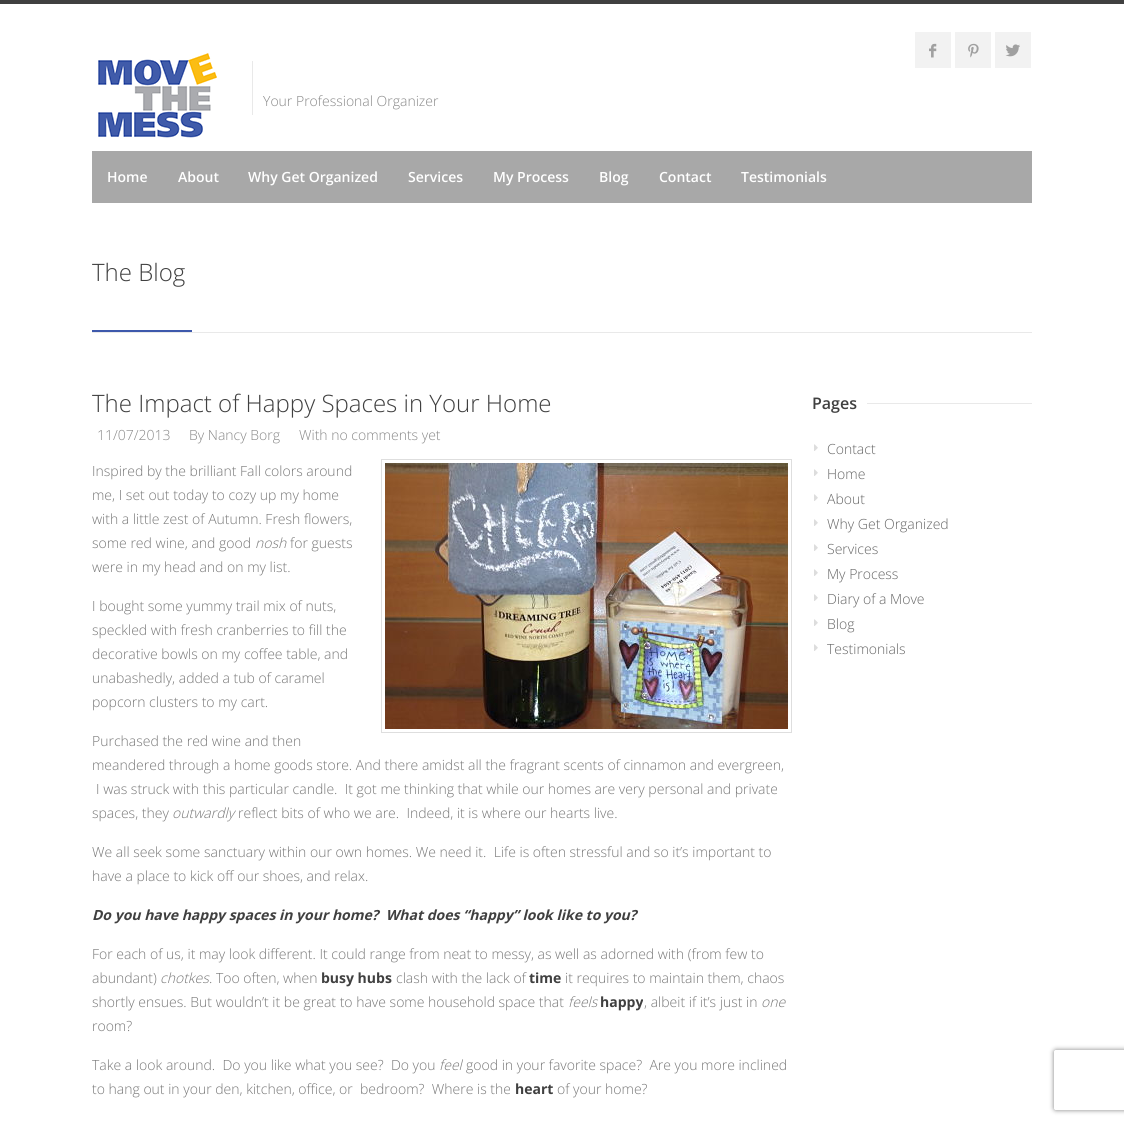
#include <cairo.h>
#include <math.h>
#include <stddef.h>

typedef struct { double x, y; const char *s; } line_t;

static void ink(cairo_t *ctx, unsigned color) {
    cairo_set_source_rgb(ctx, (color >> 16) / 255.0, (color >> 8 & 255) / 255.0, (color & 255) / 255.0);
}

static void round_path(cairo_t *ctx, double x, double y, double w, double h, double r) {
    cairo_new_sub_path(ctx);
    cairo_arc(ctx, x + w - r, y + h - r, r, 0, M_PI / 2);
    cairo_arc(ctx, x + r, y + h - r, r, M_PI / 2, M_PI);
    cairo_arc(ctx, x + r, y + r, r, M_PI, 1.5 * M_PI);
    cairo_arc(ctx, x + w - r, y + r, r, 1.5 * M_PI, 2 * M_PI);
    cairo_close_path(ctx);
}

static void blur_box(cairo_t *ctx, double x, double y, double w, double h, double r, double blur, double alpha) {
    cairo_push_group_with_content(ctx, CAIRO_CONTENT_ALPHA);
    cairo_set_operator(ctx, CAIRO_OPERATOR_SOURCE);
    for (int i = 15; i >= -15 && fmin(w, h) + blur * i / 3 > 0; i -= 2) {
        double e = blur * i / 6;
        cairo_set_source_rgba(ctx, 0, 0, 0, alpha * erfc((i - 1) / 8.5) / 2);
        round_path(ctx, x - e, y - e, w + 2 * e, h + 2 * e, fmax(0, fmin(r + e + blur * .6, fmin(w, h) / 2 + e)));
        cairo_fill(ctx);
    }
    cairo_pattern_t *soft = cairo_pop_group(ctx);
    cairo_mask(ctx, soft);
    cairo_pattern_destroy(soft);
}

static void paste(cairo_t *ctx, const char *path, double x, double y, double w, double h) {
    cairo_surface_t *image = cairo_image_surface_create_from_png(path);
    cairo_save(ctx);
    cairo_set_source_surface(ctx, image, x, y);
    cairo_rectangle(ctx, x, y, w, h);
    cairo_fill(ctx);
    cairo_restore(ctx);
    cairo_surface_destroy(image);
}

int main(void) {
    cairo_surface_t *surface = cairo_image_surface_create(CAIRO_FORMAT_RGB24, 1124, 1124);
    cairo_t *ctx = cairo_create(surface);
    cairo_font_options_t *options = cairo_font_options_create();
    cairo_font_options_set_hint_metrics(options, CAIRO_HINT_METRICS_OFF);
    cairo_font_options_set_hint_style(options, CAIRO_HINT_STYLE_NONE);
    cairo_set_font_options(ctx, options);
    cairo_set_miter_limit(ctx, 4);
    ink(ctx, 0xFFFFFF);
    cairo_paint(ctx);
    ink(ctx, 0x404040);
    cairo_rectangle(ctx, 0, 0, 1124, 4);
    cairo_fill(ctx);
    ink(ctx, 0xF2F2F2);
    cairo_rectangle(ctx, 915, 32, 36, 36);
    cairo_fill(ctx);
    paste(ctx, "media/1.png", 929, 43, 8, 15);
    cairo_rectangle(ctx, 955, 32, 36, 36);
    cairo_fill(ctx);
    paste(ctx, "media/2.png", 968, 43, 11, 15);
    cairo_rectangle(ctx, 995, 32, 36, 36);
    cairo_fill(ctx);
    paste(ctx, "media/3.png", 1005, 44, 15, 13);
    paste(ctx, "media/4.png", 98, 53, 119, 85);
    ink(ctx, 0xE9E9E9);
    cairo_rectangle(ctx, 252, 61, 1, 54);
    cairo_fill(ctx);
    cairo_select_font_face(ctx, "Open Sans Light", CAIRO_FONT_SLANT_NORMAL, CAIRO_FONT_WEIGHT_NORMAL);
    cairo_set_font_size(ctx, 14);
    ink(ctx, 0x888888);
    cairo_move_to(ctx, 263, 106);
    cairo_show_text(ctx, "Your Professional Organizer");
    ink(ctx, 0xA8A8A8);
    cairo_rectangle(ctx, 92, 151, 940, 52);
    cairo_fill(ctx);
    cairo_select_font_face(ctx, "Open Sans SemiBold", CAIRO_FONT_SLANT_NORMAL, CAIRO_FONT_WEIGHT_NORMAL);
    ink(ctx, 0xFFFFFF);
    {
        static const line_t items[] = {
            {107, 182, "Home"},
            {178, 182, "About"},
            {248, 182, "Why Get Organized"},
            {408, 182, "Services"},
            {493, 182, "My Process"},
            {599, 182, "Blog"},
            {659, 182, "Contact"},
            {741, 182, "Testimonials"},
        };
        for (size_t i = 0; i < sizeof items / sizeof *items; i++) {
            cairo_move_to(ctx, items[i].x, items[i].y);
            cairo_show_text(ctx, items[i].s);
        }
    }
    ink(ctx, 0xE9E9E9);
    cairo_rectangle(ctx, 92, 332, 940, 1);
    cairo_fill(ctx);
    cairo_select_font_face(ctx, "Open Sans Light", CAIRO_FONT_SLANT_NORMAL, CAIRO_FONT_WEIGHT_NORMAL);
    cairo_set_font_size(ctx, 24);
    ink(ctx, 0x404040);
    cairo_move_to(ctx, 92, 281);
    cairo_show_text(ctx, "The Blog");
    ink(ctx, 0x3E59AC);
    cairo_rectangle(ctx, 92, 330, 100, 2);
    cairo_fill(ctx);
    ink(ctx, 0x404040);
    cairo_move_to(ctx, 92, 412);
    cairo_show_text(ctx, "The Impact of Happy Spaces in Your Home");
    cairo_set_font_size(ctx, 14);
    ink(ctx, 0x888888);
    {
        static const line_t items[] = {
            {97, 440, "11/07/2013"},
            {189, 440, "By Nancy Borg"},
            {299, 440, "With no comments yet"},
        };
        for (size_t i = 0; i < sizeof items / sizeof *items; i++) {
            cairo_move_to(ctx, items[i].x, items[i].y);
            cairo_show_text(ctx, items[i].s);
        }
    }
    ink(ctx, 0x777777);
    {
        static const line_t items[] = {
            {92, 476, "Inspired by the brilliant Fall colors around"},
            {92, 500, "me, I set out today to cozy up my home"},
            {92, 524, "with a little zest of Autumn. Fresh flowers,"},
            {92, 548, "some red wine, and good"},
        };
        for (size_t i = 0; i < sizeof items / sizeof *items; i++) {
            cairo_move_to(ctx, items[i].x, items[i].y);
            cairo_show_text(ctx, items[i].s);
        }
    }
    cairo_select_font_face(ctx, "Open Sans Light", CAIRO_FONT_SLANT_ITALIC, CAIRO_FONT_WEIGHT_NORMAL);
    cairo_move_to(ctx, 255, 548);
    cairo_show_text(ctx, "nosh");
    cairo_select_font_face(ctx, "Open Sans Light", CAIRO_FONT_SLANT_NORMAL, CAIRO_FONT_WEIGHT_NORMAL);
    cairo_move_to(ctx, 290, 548);
    cairo_show_text(ctx, "for guests");
    cairo_move_to(ctx, 92, 572);
    cairo_show_text(ctx, "were in my head and on my list.");
    cairo_rectangle(ctx, 381.5, 459.5, 410, 273);
    ink(ctx, 0xDEDEDE);
    cairo_set_line_width(ctx, 1);
    cairo_stroke(ctx);
    paste(ctx, "media/5.png", 385, 463, 403, 266);
    ink(ctx, 0x777777);
    {
        static const line_t items[] = {
            {92, 611, "I bought some yummy trail mix of nuts,"},
            {92, 635, "speckled with fresh cranberries to fill the"},
            {92, 659, "decorative bowls on my coffee table, and"},
            {92, 683, "unabashedly, added a tub of caramel"},
            {92, 707, "popcorn clusters to my cart."},
            {92, 746, "Purchased the red wine and then"},
            {92, 770, "meandered through a home goods store. And there amidst all the fragrant scents of cinnamon and evergreen,"},
            {96, 794, "I was struck with this particular candle.  It got me thinking that while our homes are very personal and private"},
            {92, 818, "spaces, they"},
        };
        for (size_t i = 0; i < sizeof items / sizeof *items; i++) {
            cairo_move_to(ctx, items[i].x, items[i].y);
            cairo_show_text(ctx, items[i].s);
        }
    }
    cairo_select_font_face(ctx, "Open Sans Light", CAIRO_FONT_SLANT_ITALIC, CAIRO_FONT_WEIGHT_NORMAL);
    cairo_move_to(ctx, 172, 818);
    cairo_show_text(ctx, "outwardly");
    cairo_select_font_face(ctx, "Open Sans Light", CAIRO_FONT_SLANT_NORMAL, CAIRO_FONT_WEIGHT_NORMAL);
    {
        static const line_t items[] = {
            {238, 818, "reflect bits of who we are.  Indeed, it is where our hearts live."},
            {92, 857, "We all seek some sanctuary within our own homes. We need it.  Life is often stressful and so it’s important to"},
            {92, 881, "have a place to kick off our shoes, and relax."},
        };
        for (size_t i = 0; i < sizeof items / sizeof *items; i++) {
            cairo_move_to(ctx, items[i].x, items[i].y);
            cairo_show_text(ctx, items[i].s);
        }
    }
    cairo_select_font_face(ctx, "Open Sans", CAIRO_FONT_SLANT_ITALIC, CAIRO_FONT_WEIGHT_BOLD);
    ink(ctx, 0x404040);
    cairo_move_to(ctx, 92, 920);
    cairo_show_text(ctx, "Do you have happy spaces in your home?  What does “happy” look like to you?");
    cairo_select_font_face(ctx, "Open Sans Light", CAIRO_FONT_SLANT_NORMAL, CAIRO_FONT_WEIGHT_NORMAL);
    ink(ctx, 0x777777);
    cairo_move_to(ctx, 92, 959);
    cairo_show_text(ctx, "For each of us, it may look different. It could range from neat to messy, as well as adorned with (from few to");
    cairo_move_to(ctx, 92, 983);
    cairo_show_text(ctx, "abundant)");
    cairo_select_font_face(ctx, "Open Sans Light", CAIRO_FONT_SLANT_ITALIC, CAIRO_FONT_WEIGHT_NORMAL);
    cairo_move_to(ctx, 160, 983);
    cairo_show_text(ctx, "chotkes");
    cairo_select_font_face(ctx, "Open Sans Light", CAIRO_FONT_SLANT_NORMAL, CAIRO_FONT_WEIGHT_NORMAL);
    cairo_move_to(ctx, 209, 983);
    cairo_show_text(ctx, ". Too often, when");
    cairo_select_font_face(ctx, "Open Sans", CAIRO_FONT_SLANT_NORMAL, CAIRO_FONT_WEIGHT_BOLD);
    ink(ctx, 0x404040);
    cairo_move_to(ctx, 321, 983);
    cairo_show_text(ctx, "busy hubs");
    cairo_select_font_face(ctx, "Open Sans Light", CAIRO_FONT_SLANT_NORMAL, CAIRO_FONT_WEIGHT_NORMAL);
    ink(ctx, 0x777777);
    cairo_move_to(ctx, 396, 983);
    cairo_show_text(ctx, "clash with the lack of");
    cairo_select_font_face(ctx, "Open Sans", CAIRO_FONT_SLANT_NORMAL, CAIRO_FONT_WEIGHT_BOLD);
    ink(ctx, 0x404040);
    cairo_move_to(ctx, 529, 983);
    cairo_show_text(ctx, "time");
    cairo_select_font_face(ctx, "Open Sans Light", CAIRO_FONT_SLANT_NORMAL, CAIRO_FONT_WEIGHT_NORMAL);
    ink(ctx, 0x777777);
    cairo_move_to(ctx, 565, 983);
    cairo_show_text(ctx, "it requires to maintain them, chaos");
    cairo_move_to(ctx, 92, 1007);
    cairo_show_text(ctx, "shortly ensues. But wouldn’t it be great to have some household space that");
    cairo_select_font_face(ctx, "Open Sans Light", CAIRO_FONT_SLANT_ITALIC, CAIRO_FONT_WEIGHT_NORMAL);
    cairo_move_to(ctx, 568, 1007);
    cairo_show_text(ctx, "feels");
    cairo_select_font_face(ctx, "Open Sans", CAIRO_FONT_SLANT_NORMAL, CAIRO_FONT_WEIGHT_BOLD);
    ink(ctx, 0x404040);
    cairo_move_to(ctx, 600, 1007);
    cairo_show_text(ctx, "happy");
    cairo_select_font_face(ctx, "Open Sans Light", CAIRO_FONT_SLANT_NORMAL, CAIRO_FONT_WEIGHT_NORMAL);
    ink(ctx, 0x777777);
    cairo_move_to(ctx, 644, 1007);
    cairo_show_text(ctx, ", albeit if it’s just in");
    cairo_select_font_face(ctx, "Open Sans Light", CAIRO_FONT_SLANT_ITALIC, CAIRO_FONT_WEIGHT_NORMAL);
    cairo_move_to(ctx, 761, 1007);
    cairo_show_text(ctx, "one");
    cairo_select_font_face(ctx, "Open Sans Light", CAIRO_FONT_SLANT_NORMAL, CAIRO_FONT_WEIGHT_NORMAL);
    cairo_move_to(ctx, 92, 1031);
    cairo_show_text(ctx, "room?");
    cairo_move_to(ctx, 92, 1070);
    cairo_show_text(ctx, "Take a look around.  Do you like what you see?  Do you");
    cairo_select_font_face(ctx, "Open Sans Light", CAIRO_FONT_SLANT_ITALIC, CAIRO_FONT_WEIGHT_NORMAL);
    cairo_move_to(ctx, 439, 1070);
    cairo_show_text(ctx, "feel");
    cairo_select_font_face(ctx, "Open Sans Light", CAIRO_FONT_SLANT_NORMAL, CAIRO_FONT_WEIGHT_NORMAL);
    cairo_move_to(ctx, 466, 1070);
    cairo_show_text(ctx, "good in your favorite space?  Are you more inclined");
    cairo_move_to(ctx, 92, 1094);
    cairo_show_text(ctx, "to hang out in your den, kitchen, office, or  bedroom?  Where is the");
    cairo_select_font_face(ctx, "Open Sans", CAIRO_FONT_SLANT_NORMAL, CAIRO_FONT_WEIGHT_BOLD);
    ink(ctx, 0x404040);
    cairo_move_to(ctx, 515, 1094);
    cairo_show_text(ctx, "heart");
    cairo_select_font_face(ctx, "Open Sans Light", CAIRO_FONT_SLANT_NORMAL, CAIRO_FONT_WEIGHT_NORMAL);
    ink(ctx, 0x777777);
    cairo_move_to(ctx, 557, 1094);
    cairo_show_text(ctx, "of your home?");
    ink(ctx, 0xE9E9E9);
    cairo_rectangle(ctx, 867, 403, 165, 1);
    cairo_fill(ctx);
    cairo_select_font_face(ctx, "Open Sans SemiBold", CAIRO_FONT_SLANT_NORMAL, CAIRO_FONT_WEIGHT_NORMAL);
    cairo_set_font_size(ctx, 16);
    ink(ctx, 0x404040);
    cairo_move_to(ctx, 812, 409);
    cairo_show_text(ctx, "Pages");
    paste(ctx, "media/6.png", 814, 444, 4, 7);
    cairo_select_font_face(ctx, "Open Sans Light", CAIRO_FONT_SLANT_NORMAL, CAIRO_FONT_WEIGHT_NORMAL);
    cairo_set_font_size(ctx, 14);
    ink(ctx, 0x666666);
    cairo_move_to(ctx, 827, 454);
    cairo_show_text(ctx, "Contact");
    paste(ctx, "media/6.png", 814, 469, 4, 7);
    cairo_move_to(ctx, 827, 479);
    cairo_show_text(ctx, "Home");
    paste(ctx, "media/6.png", 814, 494, 4, 7);
    cairo_move_to(ctx, 827, 504);
    cairo_show_text(ctx, "About");
    paste(ctx, "media/6.png", 814, 519, 4, 7);
    cairo_move_to(ctx, 827, 529);
    cairo_show_text(ctx, "Why Get Organized");
    paste(ctx, "media/6.png", 814, 544, 4, 7);
    cairo_move_to(ctx, 827, 554);
    cairo_show_text(ctx, "Services");
    paste(ctx, "media/6.png", 814, 569, 4, 7);
    cairo_move_to(ctx, 827, 579);
    cairo_show_text(ctx, "My Process");
    paste(ctx, "media/6.png", 814, 594, 4, 7);
    cairo_move_to(ctx, 827, 604);
    cairo_show_text(ctx, "Diary of a Move");
    paste(ctx, "media/6.png", 814, 619, 4, 7);
    cairo_move_to(ctx, 827, 629);
    cairo_show_text(ctx, "Blog");
    paste(ctx, "media/6.png", 814, 644, 4, 7);
    cairo_move_to(ctx, 827, 654);
    cairo_show_text(ctx, "Testimonials");
    cairo_save(ctx);
    cairo_set_fill_rule(ctx, CAIRO_FILL_RULE_EVEN_ODD);
    cairo_new_path(ctx);
    cairo_move_to(ctx, 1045, 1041);
    cairo_line_to(ctx, 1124, 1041);
    cairo_line_to(ctx, 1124, 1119);
    cairo_line_to(ctx, 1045, 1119);
    cairo_close_path(ctx);
    cairo_move_to(ctx, 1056, 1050);
    cairo_line_to(ctx, 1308, 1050);
    cairo_curve_to(ctx, 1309, 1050, 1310, 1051, 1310, 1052);
    cairo_line_to(ctx, 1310, 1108);
    cairo_curve_to(ctx, 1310, 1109, 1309, 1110, 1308, 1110);
    cairo_line_to(ctx, 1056, 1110);
    cairo_curve_to(ctx, 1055, 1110, 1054, 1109, 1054, 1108);
    cairo_line_to(ctx, 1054, 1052);
    cairo_curve_to(ctx, 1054, 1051, 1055, 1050, 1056, 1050);
    cairo_close_path(ctx);
    cairo_clip(ctx);
    ink(ctx, 0x808080);
    blur_box(ctx, 1054, 1050, 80, 60, 2, 2.5, 1);
    cairo_restore(ctx);
    cairo_surface_write_to_png(surface, "image.png");
    cairo_font_options_destroy(options);
    cairo_destroy(ctx);
    cairo_surface_destroy(surface);
    return 0;
}
